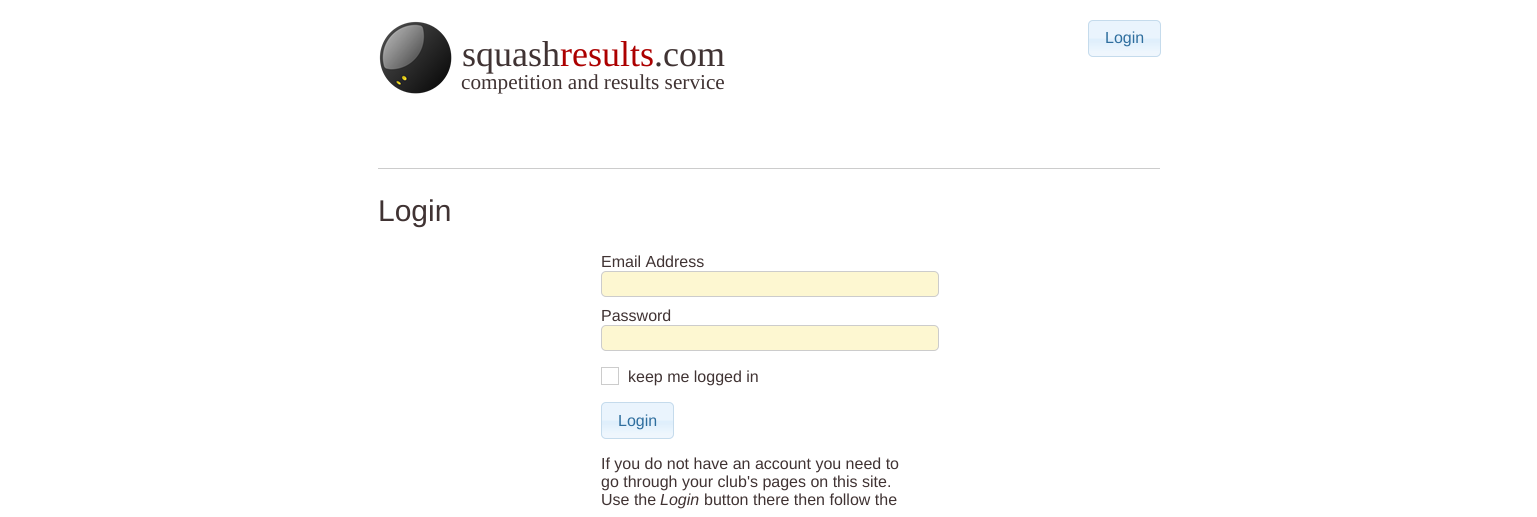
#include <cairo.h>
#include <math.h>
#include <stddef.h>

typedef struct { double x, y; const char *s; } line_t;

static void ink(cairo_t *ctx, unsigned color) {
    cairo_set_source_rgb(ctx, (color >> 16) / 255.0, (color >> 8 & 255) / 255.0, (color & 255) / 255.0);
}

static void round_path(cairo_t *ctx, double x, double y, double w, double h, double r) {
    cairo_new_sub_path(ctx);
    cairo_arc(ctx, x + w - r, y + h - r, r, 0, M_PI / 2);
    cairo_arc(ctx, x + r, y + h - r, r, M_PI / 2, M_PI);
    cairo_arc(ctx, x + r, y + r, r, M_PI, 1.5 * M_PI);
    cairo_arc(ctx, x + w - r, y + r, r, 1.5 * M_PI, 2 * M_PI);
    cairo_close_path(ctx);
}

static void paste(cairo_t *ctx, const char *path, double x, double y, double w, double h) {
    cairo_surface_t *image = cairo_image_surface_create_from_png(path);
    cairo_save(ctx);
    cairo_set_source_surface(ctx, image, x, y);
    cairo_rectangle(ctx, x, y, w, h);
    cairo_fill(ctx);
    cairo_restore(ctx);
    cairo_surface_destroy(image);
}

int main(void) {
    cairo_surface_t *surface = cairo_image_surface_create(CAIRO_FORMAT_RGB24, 1537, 517);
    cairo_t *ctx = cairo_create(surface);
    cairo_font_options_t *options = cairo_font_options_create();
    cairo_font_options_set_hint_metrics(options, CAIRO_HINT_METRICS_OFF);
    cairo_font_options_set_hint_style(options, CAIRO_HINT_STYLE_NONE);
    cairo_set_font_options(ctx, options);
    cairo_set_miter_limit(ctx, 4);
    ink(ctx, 0xFFFFFF);
    cairo_paint(ctx);
    ink(ctx, 0xCCCCCC);
    cairo_rectangle(ctx, 378, 168, 782, 1);
    cairo_fill(ctx);
    paste(ctx, "media/1.png", 1088, 20, 73, 37);
    round_path(ctx, 1088.5, 20.5, 72, 36, 4.5);
    ink(ctx, 0xC5DBEC);
    cairo_set_line_width(ctx, 1);
    cairo_stroke(ctx);
    cairo_select_font_face(ctx, "Liberation Sans", CAIRO_FONT_SLANT_NORMAL, CAIRO_FONT_WEIGHT_NORMAL);
    cairo_set_font_size(ctx, 16);
    ink(ctx, 0x2E6E9E);
    cairo_move_to(ctx, 1105, 43);
    cairo_show_text(ctx, "Login");
    paste(ctx, "media/2.png", 379, 21, 73, 73);
    cairo_select_font_face(ctx, "Liberation Serif", CAIRO_FONT_SLANT_NORMAL, CAIRO_FONT_WEIGHT_NORMAL);
    cairo_set_font_size(ctx, 36);
    ink(ctx, 0x403333);
    cairo_move_to(ctx, 462, 66);
    cairo_show_text(ctx, "squash");
    ink(ctx, 0xAC0000);
    cairo_move_to(ctx, 560, 66);
    cairo_show_text(ctx, "results");
    ink(ctx, 0x403333);
    cairo_move_to(ctx, 654, 66);
    cairo_show_text(ctx, ".com");
    cairo_set_font_size(ctx, 21.25);
    cairo_move_to(ctx, 461, 89);
    cairo_show_text(ctx, "competition and results service");
    cairo_select_font_face(ctx, "Liberation Sans", CAIRO_FONT_SLANT_NORMAL, CAIRO_FONT_WEIGHT_NORMAL);
    cairo_set_font_size(ctx, 30);
    cairo_move_to(ctx, 378, 221);
    cairo_show_text(ctx, "Login");
    cairo_set_font_size(ctx, 16);
    cairo_move_to(ctx, 601, 267);
    cairo_show_text(ctx, "Email Address");
    ink(ctx, 0xFDF7D1);
    round_path(ctx, 601.5, 271.5, 337, 25, 4.5);
    cairo_fill_preserve(ctx);
    ink(ctx, 0xCCCCCC);
    cairo_stroke(ctx);
    ink(ctx, 0x403333);
    cairo_move_to(ctx, 601, 321);
    cairo_show_text(ctx, "Password");
    ink(ctx, 0xFDF7D1);
    round_path(ctx, 601.5, 325.5, 337, 25, 4.5);
    cairo_fill_preserve(ctx);
    ink(ctx, 0xCCCCCC);
    cairo_stroke(ctx);
    cairo_rectangle(ctx, 601.5, 367.5, 17, 17);
    cairo_stroke(ctx);
    ink(ctx, 0x403333);
    cairo_move_to(ctx, 628, 382);
    cairo_show_text(ctx, "keep me logged in");
    paste(ctx, "media/1.png", 601, 402, 73, 37);
    round_path(ctx, 601.5, 402.5, 72, 36, 4.5);
    ink(ctx, 0xC5DBEC);
    cairo_stroke(ctx);
    ink(ctx, 0x2E6E9E);
    cairo_move_to(ctx, 618, 426);
    cairo_show_text(ctx, "Login");
    ink(ctx, 0x403333);
    {
        static const line_t items[] = {
            {601, 469, "If you do not have an account you need to"},
            {601, 487, "go through your club's pages on this site."},
            {601, 505, "Use the"},
        };
        for (size_t i = 0; i < sizeof items / sizeof *items; i++) {
            cairo_move_to(ctx, items[i].x, items[i].y);
            cairo_show_text(ctx, items[i].s);
        }
    }
    cairo_select_font_face(ctx, "Liberation Sans", CAIRO_FONT_SLANT_ITALIC, CAIRO_FONT_WEIGHT_NORMAL);
    cairo_move_to(ctx, 660, 505);
    cairo_show_text(ctx, "Login");
    cairo_select_font_face(ctx, "Liberation Sans", CAIRO_FONT_SLANT_NORMAL, CAIRO_FONT_WEIGHT_NORMAL);
    cairo_move_to(ctx, 704, 505);
    cairo_show_text(ctx, "button there then follow the");
    cairo_surface_write_to_png(surface, "image.png");
    cairo_font_options_destroy(options);
    cairo_destroy(ctx);
    cairo_surface_destroy(surface);
    return 0;
}
